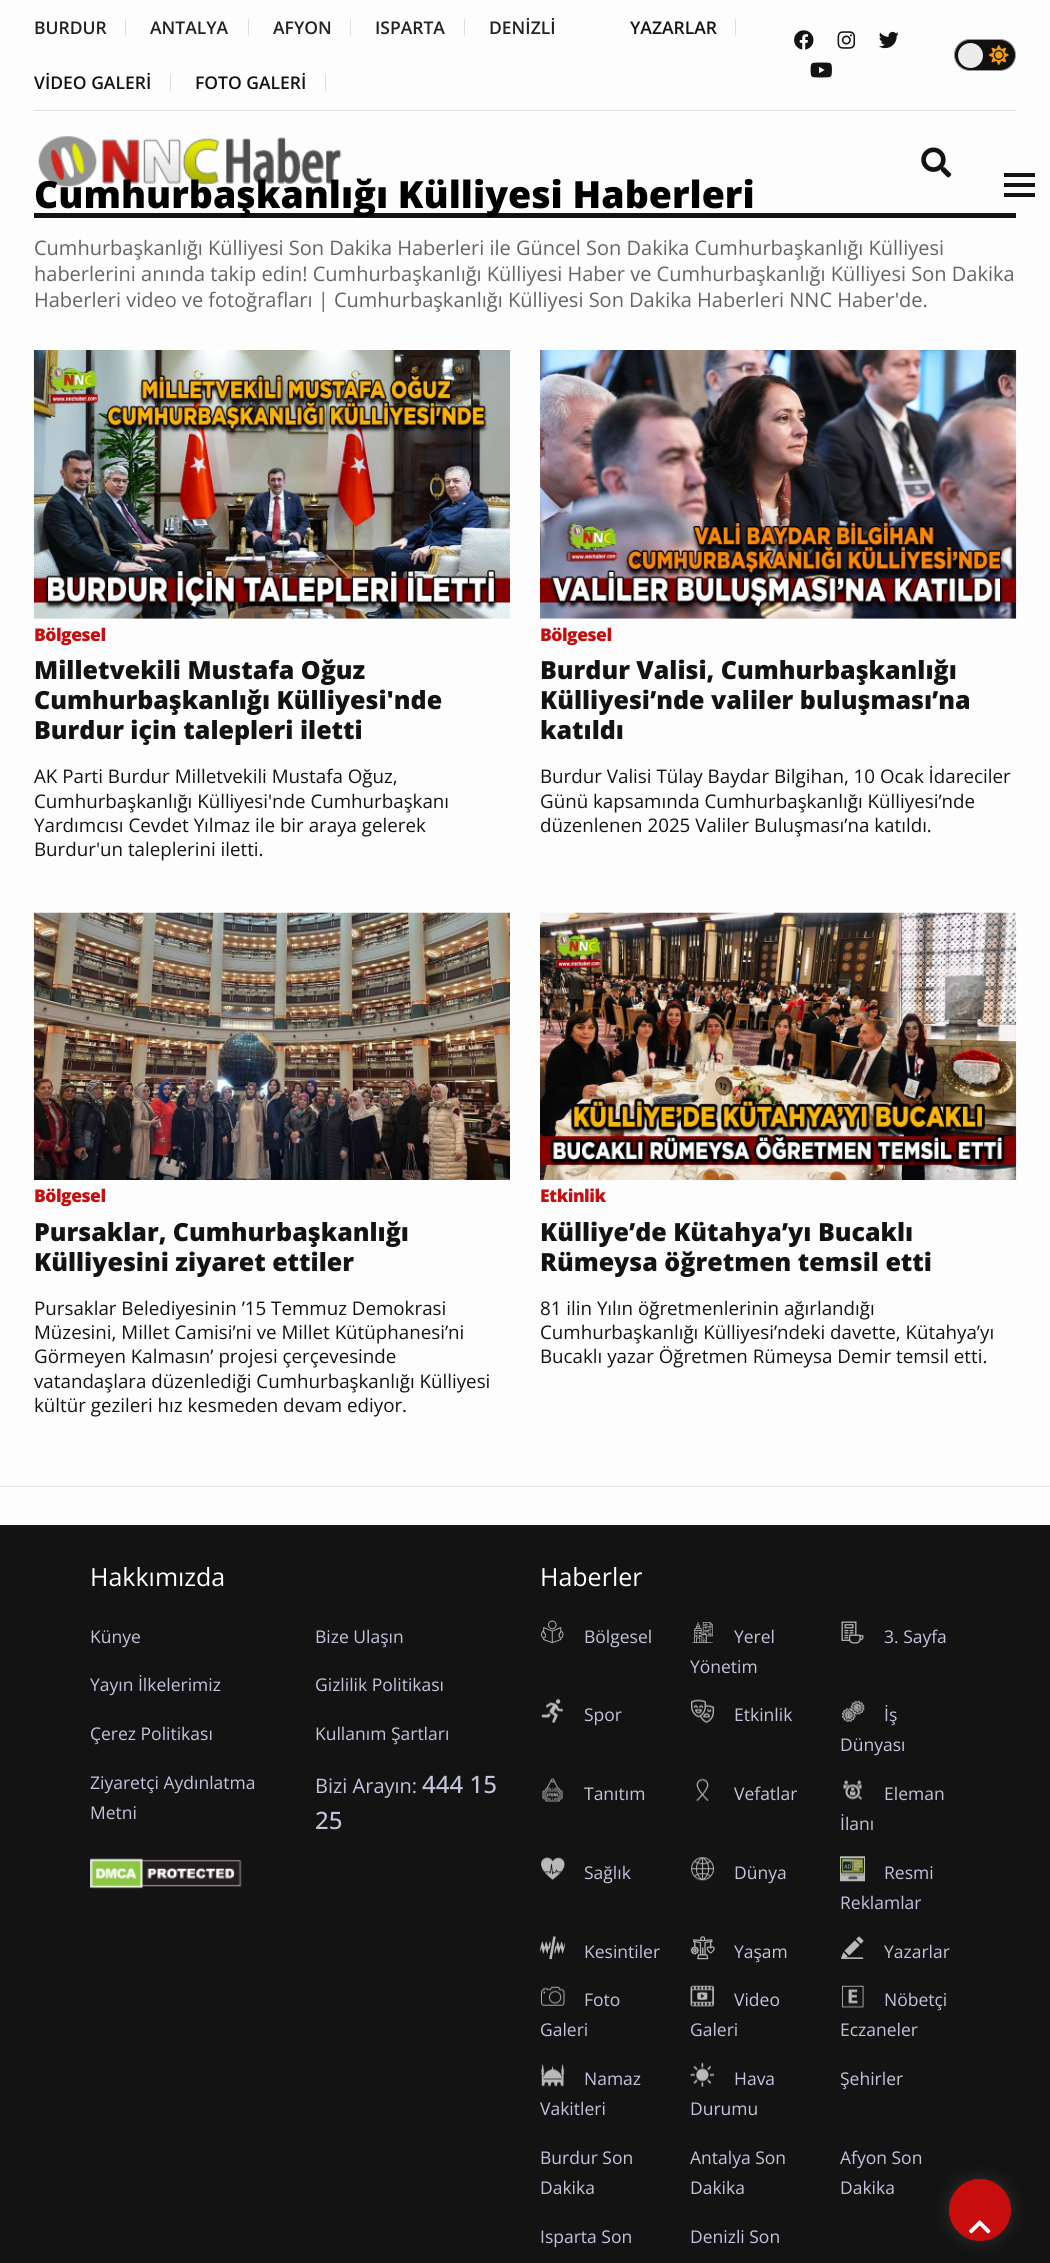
#include <cairo.h>
#include <math.h>
#include <stddef.h>

typedef struct { double x, y; const char *s; } line_t;
typedef struct { double x, y, w, h; unsigned color; } box_t;

static void ink(cairo_t *ctx, unsigned color) {
    cairo_set_source_rgb(ctx, (color >> 16) / 255.0, (color >> 8 & 255) / 255.0, (color & 255) / 255.0);
}

static void write_spaced(cairo_t *ctx, double x, double y, const char *s, double letter, double word) {
    cairo_move_to(ctx, x, y);
    while (*s) {
        char ch[5] = {0};
        int n = 0;
        do ch[n++] = *s++; while ((*s & 0xC0) == 0x80);
        cairo_show_text(ctx, ch);
        cairo_rel_move_to(ctx, letter + word * (*ch == ' '), 0);
    }
}

static void round_path(cairo_t *ctx, double x, double y, double w, double h, double r) {
    cairo_new_sub_path(ctx);
    cairo_arc(ctx, x + w - r, y + h - r, r, 0, M_PI / 2);
    cairo_arc(ctx, x + r, y + h - r, r, M_PI / 2, M_PI);
    cairo_arc(ctx, x + r, y + r, r, M_PI, 1.5 * M_PI);
    cairo_arc(ctx, x + w - r, y + r, r, 1.5 * M_PI, 2 * M_PI);
    cairo_close_path(ctx);
}

static void blur_box(cairo_t *ctx, double x, double y, double w, double h, double r, double blur, double alpha) {
    cairo_push_group_with_content(ctx, CAIRO_CONTENT_ALPHA);
    cairo_set_operator(ctx, CAIRO_OPERATOR_SOURCE);
    for (int i = 15; i >= -15 && fmin(w, h) + blur * i / 3 > 0; i -= 2) {
        double e = blur * i / 6;
        cairo_set_source_rgba(ctx, 0, 0, 0, alpha * erfc((i - 1) / 8.5) / 2);
        round_path(ctx, x - e, y - e, w + 2 * e, h + 2 * e, fmax(0, fmin(r + e + blur * .6, fmin(w, h) / 2 + e)));
        cairo_fill(ctx);
    }
    cairo_pattern_t *soft = cairo_pop_group(ctx);
    cairo_mask(ctx, soft);
    cairo_pattern_destroy(soft);
}

static void paste(cairo_t *ctx, const char *path, double x, double y, double w, double h) {
    cairo_surface_t *image = cairo_image_surface_create_from_png(path);
    cairo_save(ctx);
    cairo_set_source_surface(ctx, image, x, y);
    cairo_rectangle(ctx, x, y, w, h);
    cairo_fill(ctx);
    cairo_restore(ctx);
    cairo_surface_destroy(image);
}

int main(void) {
    cairo_surface_t *surface = cairo_image_surface_create(CAIRO_FORMAT_RGB24, 1050, 2263);
    cairo_t *ctx = cairo_create(surface);
    cairo_font_options_t *options = cairo_font_options_create();
    cairo_font_options_set_hint_metrics(options, CAIRO_HINT_METRICS_OFF);
    cairo_font_options_set_hint_style(options, CAIRO_HINT_STYLE_NONE);
    cairo_set_font_options(ctx, options);
    cairo_set_miter_limit(ctx, 4);
    ink(ctx, 0xFDFDFD);
    cairo_paint(ctx);
    ink(ctx, 0xDFDFDF);
    cairo_rectangle(ctx, 125, 19, 1, 17);
    cairo_fill(ctx);
    cairo_select_font_face(ctx, "Open Sans SemiBold", CAIRO_FONT_SLANT_NORMAL, CAIRO_FONT_WEIGHT_NORMAL);
    cairo_set_font_size(ctx, 17.5);
    ink(ctx, 0x222222);
    cairo_move_to(ctx, 34, 34);
    cairo_show_text(ctx, "BURDUR");
    ink(ctx, 0xDFDFDF);
    cairo_rectangle(ctx, 248, 19, 1, 17);
    cairo_fill(ctx);
    ink(ctx, 0x222222);
    cairo_move_to(ctx, 150, 34);
    cairo_show_text(ctx, "ANTALYA");
    ink(ctx, 0xDFDFDF);
    cairo_rectangle(ctx, 350, 19, 1, 17);
    cairo_fill(ctx);
    ink(ctx, 0x222222);
    cairo_move_to(ctx, 273, 34);
    cairo_show_text(ctx, "AFYON");
    ink(ctx, 0xDFDFDF);
    cairo_rectangle(ctx, 464, 19, 1, 17);
    cairo_fill(ctx);
    ink(ctx, 0x222222);
    cairo_move_to(ctx, 375, 34);
    cairo_show_text(ctx, "ISPARTA");
    cairo_move_to(ctx, 489, 34);
    cairo_show_text(ctx, "DENİZLİ");
    ink(ctx, 0xDFDFDF);
    cairo_rectangle(ctx, 735, 19, 1, 17);
    cairo_fill(ctx);
    ink(ctx, 0x131313);
    cairo_move_to(ctx, 630, 34);
    cairo_show_text(ctx, "YAZARLAR");
    ink(ctx, 0xDFDFDF);
    cairo_rectangle(ctx, 170, 74, 1, 17);
    cairo_fill(ctx);
    ink(ctx, 0x131313);
    cairo_move_to(ctx, 34, 89);
    cairo_show_text(ctx, "VİDEO GALERİ");
    ink(ctx, 0xDFDFDF);
    cairo_rectangle(ctx, 325, 74, 1, 17);
    cairo_fill(ctx);
    ink(ctx, 0x131313);
    cairo_move_to(ctx, 195, 89);
    cairo_show_text(ctx, "FOTO GALERİ");
    paste(ctx, "media/1.png", 794, 30, 20, 20);
    paste(ctx, "media/2.png", 837, 31, 19, 18);
    paste(ctx, "media/3.png", 878, 31, 21, 18);
    paste(ctx, "media/4.png", 810, 62, 22, 16);
    ink(ctx, 0x111111);
    round_path(ctx, 954.5, 39.5, 61, 31, 15.5);
    cairo_fill_preserve(ctx);
    ink(ctx, 0x989898);
    cairo_set_line_width(ctx, 1);
    cairo_stroke(ctx);
    ink(ctx, 0xECECEC);
    cairo_arc(ctx, 970.5, 55.5, 12.5, 0, 2 * M_PI);
    cairo_fill(ctx);
    paste(ctx, "media/5.png", 988, 45, 21, 20);
    ink(ctx, 0xDFDFDF);
    cairo_rectangle(ctx, 34, 110, 982, 1);
    cairo_fill(ctx);
    ink(ctx, 0x131313);
    cairo_rectangle(ctx, 34, 213, 982, 5);
    cairo_fill(ctx);
    paste(ctx, "media/6.png", 38, 136, 304, 51);
    paste(ctx, "media/7.png", 921, 147, 31, 31);
    {
        static const box_t items[] = {
            {1004, 173, 31, 4, 0x131313},
            {1004, 183, 31, 4, 0x131313},
            {1004, 193, 31, 4, 0x131313},
            {0, 1486, 1050, 1, 0xDEE2E6},
        };
        for (size_t i = 0; i < sizeof items / sizeof *items; i++) {
            ink(ctx, items[i].color);
            cairo_rectangle(ctx, items[i].x, items[i].y, items[i].w, items[i].h);
            cairo_fill(ctx);
        }
    }
    cairo_select_font_face(ctx, "Open Sans ExtraBold", CAIRO_FONT_SLANT_NORMAL, CAIRO_FONT_WEIGHT_NORMAL);
    cairo_set_font_size(ctx, 37.5);
    ink(ctx, 0x000000);
    cairo_move_to(ctx, 34, 208);
    cairo_show_text(ctx, "Cumhurbaşkanlığı Külliyesi Haberleri");
    cairo_select_font_face(ctx, "Open Sans", CAIRO_FONT_SLANT_NORMAL, CAIRO_FONT_WEIGHT_NORMAL);
    cairo_set_font_size(ctx, 20);
    ink(ctx, 0x646464);
    {
        static const line_t items[] = {
            {34, 255, "Cumhurbaşkanlığı Külliyesi Son Dakika Haberleri ile Güncel Son Dakika Cumhurbaşkanlığı Külliyesi"},
            {34, 281, "haberlerini anında takip edin! Cumhurbaşkanlığı Külliyesi Haber ve Cumhurbaşkanlığı Külliyesi Son Dakika"},
            {34, 307, "Haberleri video ve fotoğrafları | Cumhurbaşkanlığı Külliyesi Son Dakika Haberleri NNC Haber'de."},
        };
        for (size_t i = 0; i < sizeof items / sizeof *items; i++) {
            cairo_move_to(ctx, items[i].x, items[i].y);
            cairo_show_text(ctx, items[i].s);
        }
    }
    paste(ctx, "media/8.png", 33, 350, 477, 269);
    cairo_select_font_face(ctx, "Open Sans ExtraBold", CAIRO_FONT_SLANT_NORMAL, CAIRO_FONT_WEIGHT_NORMAL);
    cairo_set_font_size(ctx, 17.5);
    ink(ctx, 0xC70D0D);
    write_spaced(ctx, 34, 641, "Bölgesel", -0.5, 0);
    cairo_set_font_size(ctx, 25);
    ink(ctx, 0x131313);
    {
        static const line_t items[] = {
            {34, 679, "Milletvekili Mustafa Oğuz"},
            {34, 709, "Cumhurbaşkanlığı Külliyesi'nde"},
            {34, 739, "Burdur için talepleri iletti"},
        };
        for (size_t i = 0; i < sizeof items / sizeof *items; i++) {
            cairo_move_to(ctx, items[i].x, items[i].y);
            cairo_show_text(ctx, items[i].s);
        }
    }
    cairo_select_font_face(ctx, "Open Sans", CAIRO_FONT_SLANT_NORMAL, CAIRO_FONT_WEIGHT_NORMAL);
    cairo_set_font_size(ctx, 18.75);
    {
        static const line_t items[] = {
            {34, 783, "AK Parti Burdur Milletvekili Mustafa Oğuz,"},
            {34, 808, "Cumhurbaşkanlığı Külliyesi'nde Cumhurbaşkanı"},
            {34, 832, "Yardımcısı Cevdet Yılmaz ile bir araya gelerek"},
            {34, 856, "Burdur'un taleplerini iletti."},
        };
        for (size_t i = 0; i < sizeof items / sizeof *items; i++) {
            cairo_move_to(ctx, items[i].x, items[i].y);
            cairo_show_text(ctx, items[i].s);
        }
    }
    paste(ctx, "media/9.png", 540, 350, 477, 269);
    cairo_select_font_face(ctx, "Open Sans ExtraBold", CAIRO_FONT_SLANT_NORMAL, CAIRO_FONT_WEIGHT_NORMAL);
    cairo_set_font_size(ctx, 17.5);
    ink(ctx, 0xC70D0D);
    write_spaced(ctx, 540, 641, "Bölgesel", -0.5, 0);
    cairo_set_font_size(ctx, 25);
    ink(ctx, 0x131313);
    {
        static const line_t items[] = {
            {540, 679, "Burdur Valisi, Cumhurbaşkanlığı"},
            {540, 709, "Külliyesi’nde valiler buluşması’na"},
            {540, 739, "katıldı"},
        };
        for (size_t i = 0; i < sizeof items / sizeof *items; i++) {
            cairo_move_to(ctx, items[i].x, items[i].y);
            cairo_show_text(ctx, items[i].s);
        }
    }
    cairo_select_font_face(ctx, "Open Sans", CAIRO_FONT_SLANT_NORMAL, CAIRO_FONT_WEIGHT_NORMAL);
    cairo_set_font_size(ctx, 18.75);
    {
        static const line_t items[] = {
            {540, 783, "Burdur Valisi Tülay Baydar Bilgihan, 10 Ocak İdareciler"},
            {540, 808, "Günü kapsamında Cumhurbaşkanlığı Külliyesi’nde"},
            {540, 832, "düzenlenen 2025 Valiler Buluşması’na katıldı."},
        };
        for (size_t i = 0; i < sizeof items / sizeof *items; i++) {
            cairo_move_to(ctx, items[i].x, items[i].y);
            cairo_show_text(ctx, items[i].s);
        }
    }
    paste(ctx, "media/10.png", 33, 912, 477, 268);
    cairo_select_font_face(ctx, "Open Sans ExtraBold", CAIRO_FONT_SLANT_NORMAL, CAIRO_FONT_WEIGHT_NORMAL);
    cairo_set_font_size(ctx, 17.5);
    ink(ctx, 0xC70D0D);
    write_spaced(ctx, 34, 1202, "Bölgesel", -0.5, 0);
    cairo_set_font_size(ctx, 25);
    ink(ctx, 0x131313);
    cairo_move_to(ctx, 34, 1241);
    cairo_show_text(ctx, "Pursaklar, Cumhurbaşkanlığı");
    cairo_move_to(ctx, 34, 1271);
    cairo_show_text(ctx, "Külliyesini ziyaret ettiler");
    cairo_select_font_face(ctx, "Open Sans", CAIRO_FONT_SLANT_NORMAL, CAIRO_FONT_WEIGHT_NORMAL);
    cairo_set_font_size(ctx, 18.75);
    {
        static const line_t items[] = {
            {34, 1315, "Pursaklar Belediyesinin ’15 Temmuz Demokrasi"},
            {34, 1339, "Müzesini, Millet Camisi’ni ve Millet Kütüphanesi’ni"},
            {34, 1363, "Görmeyen Kalmasın’ projesi çerçevesinde"},
            {34, 1388, "vatandaşlara düzenlediği Cumhurbaşkanlığı Külliyesi"},
            {34, 1412, "kültür gezileri hız kesmeden devam ediyor."},
        };
        for (size_t i = 0; i < sizeof items / sizeof *items; i++) {
            cairo_move_to(ctx, items[i].x, items[i].y);
            cairo_show_text(ctx, items[i].s);
        }
    }
    paste(ctx, "media/11.png", 540, 912, 477, 268);
    cairo_select_font_face(ctx, "Open Sans ExtraBold", CAIRO_FONT_SLANT_NORMAL, CAIRO_FONT_WEIGHT_NORMAL);
    cairo_set_font_size(ctx, 17.5);
    ink(ctx, 0xC70D0D);
    write_spaced(ctx, 540, 1202, "Etkinlik", -0.5, 0);
    cairo_set_font_size(ctx, 25);
    ink(ctx, 0x131313);
    cairo_move_to(ctx, 540, 1241);
    cairo_show_text(ctx, "Külliye’de Kütahya’yı Bucaklı");
    cairo_move_to(ctx, 540, 1271);
    cairo_show_text(ctx, "Rümeysa öğretmen temsil etti");
    cairo_select_font_face(ctx, "Open Sans", CAIRO_FONT_SLANT_NORMAL, CAIRO_FONT_WEIGHT_NORMAL);
    cairo_set_font_size(ctx, 18.75);
    {
        static const line_t items[] = {
            {540, 1315, "81 ilin Yılın öğretmenlerinin ağırlandığı"},
            {540, 1339, "Cumhurbaşkanlığı Külliyesi’ndeki davette, Kütahya’yı"},
            {540, 1363, "Bucaklı yazar Öğretmen Rümeysa Demir temsil etti."},
        };
        for (size_t i = 0; i < sizeof items / sizeof *items; i++) {
            cairo_move_to(ctx, items[i].x, items[i].y);
            cairo_show_text(ctx, items[i].s);
        }
    }
    cairo_rectangle(ctx, 0, 1525, 1050, 738);
    cairo_fill(ctx);
    cairo_set_font_size(ctx, 25);
    ink(ctx, 0xFFFFFF);
    cairo_move_to(ctx, 90, 1586);
    cairo_show_text(ctx, "Hakkımızda");
    cairo_set_font_size(ctx, 17.5);
    ink(ctx, 0xC2C5DB);
    {
        static const line_t items[] = {
            {90, 1643, "Künye"},
            {315, 1643, "Bize Ulaşın"},
            {90, 1691, "Yayın İlkelerimiz"},
            {315, 1691, "Gizlilik Politikası"},
            {90, 1740, "Çerez Politikası"},
            {315, 1740, "Kullanım Şartları"},
            {90, 1789, "Ziyaretçi Aydınlatma"},
            {90, 1819, "Metni"},
        };
        for (size_t i = 0; i < sizeof items / sizeof *items; i++) {
            cairo_move_to(ctx, items[i].x, items[i].y);
            cairo_show_text(ctx, items[i].s);
        }
    }
    cairo_set_font_size(ctx, 20);
    cairo_move_to(ctx, 315, 1793);
    cairo_show_text(ctx, "Bizi Arayın:");
    cairo_select_font_face(ctx, "Open Sans Medium", CAIRO_FONT_SLANT_NORMAL, CAIRO_FONT_WEIGHT_NORMAL);
    cairo_set_font_size(ctx, 24);
    cairo_move_to(ctx, 422, 1793);
    cairo_show_text(ctx, "444 15");
    cairo_move_to(ctx, 315, 1829);
    cairo_show_text(ctx, "25");
    paste(ctx, "media/12.png", 90, 1858, 152, 31);
    cairo_select_font_face(ctx, "Open Sans", CAIRO_FONT_SLANT_NORMAL, CAIRO_FONT_WEIGHT_NORMAL);
    cairo_set_font_size(ctx, 25);
    ink(ctx, 0xFFFFFF);
    cairo_move_to(ctx, 540, 1586);
    cairo_show_text(ctx, "Haberler");
    paste(ctx, "media/13.png", 541, 1620, 23, 24);
    cairo_set_font_size(ctx, 17.5);
    ink(ctx, 0xC2C5DB);
    cairo_move_to(ctx, 584, 1643);
    cairo_show_text(ctx, "Bölgesel");
    paste(ctx, "media/14.png", 692, 1622, 21, 21);
    cairo_move_to(ctx, 734, 1643);
    cairo_show_text(ctx, "Yerel");
    cairo_move_to(ctx, 690, 1673);
    cairo_show_text(ctx, "Yönetim");
    paste(ctx, "media/15.png", 841, 1621, 23, 23);
    cairo_move_to(ctx, 884, 1643);
    cairo_show_text(ctx, "3. Sayfa");
    paste(ctx, "media/16.png", 541, 1698, 22, 25);
    cairo_move_to(ctx, 584, 1721);
    cairo_show_text(ctx, "Spor");
    paste(ctx, "media/17.png", 691, 1699, 23, 24);
    cairo_move_to(ctx, 734, 1721);
    cairo_show_text(ctx, "Etkinlik");
    paste(ctx, "media/18.png", 842, 1700, 23, 22);
    cairo_move_to(ctx, 884, 1721);
    cairo_show_text(ctx, "İş");
    cairo_move_to(ctx, 840, 1751);
    cairo_show_text(ctx, "Dünyası");
    paste(ctx, "media/19.png", 542, 1778, 21, 24);
    cairo_move_to(ctx, 584, 1800);
    cairo_show_text(ctx, "Tanıtım");
    paste(ctx, "media/20.png", 696, 1778, 13, 24);
    cairo_move_to(ctx, 734, 1800);
    cairo_show_text(ctx, "Vefatlar");
    paste(ctx, "media/21.png", 843, 1780, 19, 20);
    cairo_move_to(ctx, 884, 1800);
    cairo_show_text(ctx, "Eleman");
    cairo_move_to(ctx, 840, 1830);
    cairo_show_text(ctx, "İlanı");
    paste(ctx, "media/22.png", 541, 1857, 24, 24);
    cairo_move_to(ctx, 584, 1879);
    cairo_show_text(ctx, "Sağlık");
    paste(ctx, "media/23.png", 691, 1857, 23, 24);
    cairo_move_to(ctx, 734, 1879);
    cairo_show_text(ctx, "Dünya");
    paste(ctx, "media/24.png", 840, 1856, 25, 26);
    cairo_move_to(ctx, 884, 1879);
    cairo_show_text(ctx, "Resmi");
    cairo_move_to(ctx, 840, 1909);
    cairo_show_text(ctx, "Reklamlar");
    paste(ctx, "media/25.png", 540, 1936, 25, 24);
    cairo_move_to(ctx, 584, 1958);
    cairo_show_text(ctx, "Kesintiler");
    paste(ctx, "media/26.png", 690, 1936, 25, 24);
    cairo_move_to(ctx, 734, 1958);
    cairo_show_text(ctx, "Yaşam");
    paste(ctx, "media/27.png", 841, 1936, 23, 23);
    cairo_move_to(ctx, 884, 1958);
    cairo_show_text(ctx, "Yazarlar");
    paste(ctx, "media/28.png", 541, 1986, 24, 20);
    cairo_move_to(ctx, 584, 2006);
    cairo_show_text(ctx, "Foto");
    cairo_move_to(ctx, 540, 2036);
    cairo_show_text(ctx, "Galeri");
    paste(ctx, "media/29.png", 690, 1985, 24, 22);
    cairo_move_to(ctx, 734, 2006);
    cairo_show_text(ctx, "Video");
    cairo_move_to(ctx, 690, 2036);
    cairo_show_text(ctx, "Galeri");
    paste(ctx, "media/30.png", 842, 1985, 22, 23);
    cairo_move_to(ctx, 884, 2006);
    cairo_show_text(ctx, "Nöbetçi");
    cairo_move_to(ctx, 840, 2036);
    cairo_show_text(ctx, "Eczaneler");
    paste(ctx, "media/31.png", 541, 2063, 24, 24);
    cairo_move_to(ctx, 584, 2085);
    cairo_show_text(ctx, "Namaz");
    cairo_move_to(ctx, 540, 2115);
    cairo_show_text(ctx, "Vakitleri");
    paste(ctx, "media/32.png", 690, 2062, 24, 25);
    {
        static const line_t items[] = {
            {734, 2085, "Hava"},
            {690, 2115, "Durumu"},
            {840, 2085, "Şehirler"},
            {540, 2164, "Burdur Son"},
            {540, 2194, "Dakika"},
            {690, 2164, "Antalya Son"},
            {690, 2194, "Dakika"},
            {840, 2164, "Afyon Son"},
            {840, 2194, "Dakika"},
            {540, 2243, "Isparta Son"},
            {690, 2243, "Denizli Son"},
        };
        for (size_t i = 0; i < sizeof items / sizeof *items; i++) {
            cairo_move_to(ctx, items[i].x, items[i].y);
            cairo_show_text(ctx, items[i].s);
        }
    }
    ink(ctx, 0x6C6262);
    blur_box(ctx, 945, 2175, 70, 70, 35, 6, 0.2);
    ink(ctx, 0xC70D0D);
    cairo_arc(ctx, 980, 2210, 31, 0, 2 * M_PI);
    cairo_fill(ctx);
    paste(ctx, "media/33.png", 969, 2220, 22, 14);
    cairo_surface_write_to_png(surface, "image.png");
    cairo_font_options_destroy(options);
    cairo_destroy(ctx);
    cairo_surface_destroy(surface);
    return 0;
}
